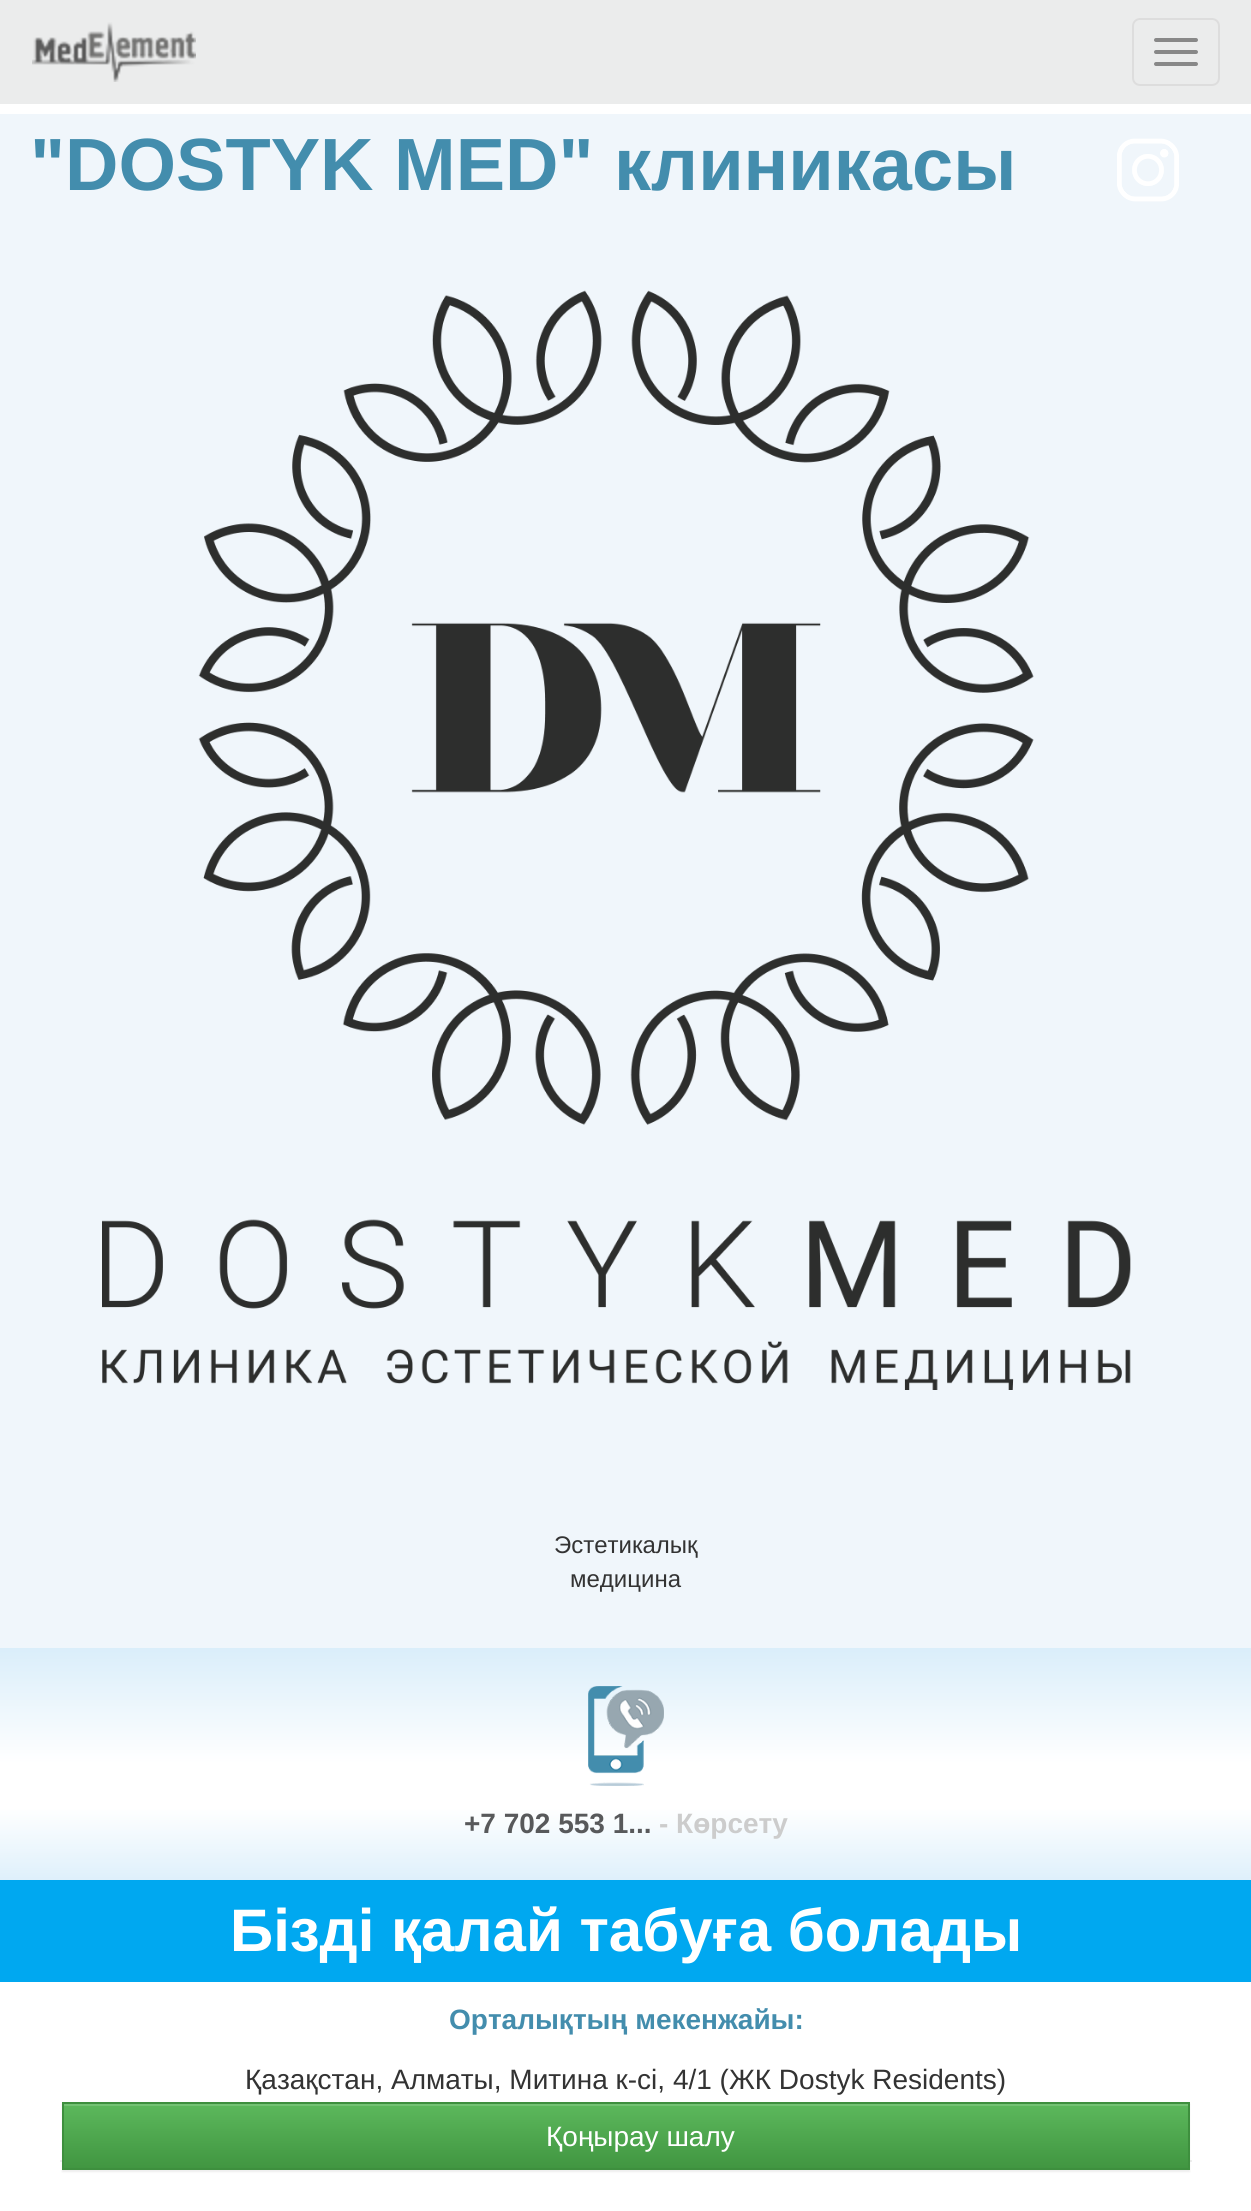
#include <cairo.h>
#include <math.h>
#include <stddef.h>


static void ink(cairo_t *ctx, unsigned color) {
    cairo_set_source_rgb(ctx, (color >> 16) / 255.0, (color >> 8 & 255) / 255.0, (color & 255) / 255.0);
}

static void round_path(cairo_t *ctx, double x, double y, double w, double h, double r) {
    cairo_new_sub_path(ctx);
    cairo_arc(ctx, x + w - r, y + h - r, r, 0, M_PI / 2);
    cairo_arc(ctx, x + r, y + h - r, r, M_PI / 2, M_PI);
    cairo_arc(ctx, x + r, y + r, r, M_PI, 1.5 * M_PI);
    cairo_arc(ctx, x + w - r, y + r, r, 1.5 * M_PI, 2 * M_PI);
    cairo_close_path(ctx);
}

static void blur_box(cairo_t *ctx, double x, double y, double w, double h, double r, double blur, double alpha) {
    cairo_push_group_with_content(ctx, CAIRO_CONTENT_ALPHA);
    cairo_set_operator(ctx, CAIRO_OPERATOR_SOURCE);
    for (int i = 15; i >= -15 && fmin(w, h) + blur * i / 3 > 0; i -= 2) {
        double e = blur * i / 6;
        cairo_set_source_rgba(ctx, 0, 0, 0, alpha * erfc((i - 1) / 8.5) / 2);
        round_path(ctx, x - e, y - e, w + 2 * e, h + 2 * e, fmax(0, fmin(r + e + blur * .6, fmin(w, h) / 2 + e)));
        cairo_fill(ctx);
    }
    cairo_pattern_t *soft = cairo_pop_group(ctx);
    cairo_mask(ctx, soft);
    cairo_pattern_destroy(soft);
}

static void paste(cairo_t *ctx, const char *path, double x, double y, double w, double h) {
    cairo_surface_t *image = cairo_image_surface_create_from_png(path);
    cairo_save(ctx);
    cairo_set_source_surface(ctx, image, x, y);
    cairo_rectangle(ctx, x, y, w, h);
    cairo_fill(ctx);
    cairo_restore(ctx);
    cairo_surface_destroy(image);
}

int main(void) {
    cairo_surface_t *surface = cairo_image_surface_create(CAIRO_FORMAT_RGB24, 1251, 2211);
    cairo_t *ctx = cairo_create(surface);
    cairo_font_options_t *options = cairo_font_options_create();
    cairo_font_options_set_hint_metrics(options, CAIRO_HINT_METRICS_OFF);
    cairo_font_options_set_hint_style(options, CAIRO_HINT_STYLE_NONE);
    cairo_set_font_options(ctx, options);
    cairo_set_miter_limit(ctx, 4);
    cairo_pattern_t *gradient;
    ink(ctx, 0xFFFFFF);
    cairo_paint(ctx);
    ink(ctx, 0xEBECEC);
    cairo_rectangle(ctx, 0, 0, 1251, 104);
    cairo_fill(ctx);
    paste(ctx, "media/1.png", 32, 22, 164, 60);
    round_path(ctx, 1133, 19, 86, 66, 7);
    ink(ctx, 0xDDDDDD);
    cairo_stroke(ctx);
    ink(ctx, 0x888888);
    round_path(ctx, 1154, 38, 44, 4, 2);
    cairo_fill(ctx);
    round_path(ctx, 1154, 50, 44, 4, 2);
    cairo_fill(ctx);
    round_path(ctx, 1154, 62, 44, 4, 2);
    cairo_fill(ctx);
    ink(ctx, 0xF0F6FB);
    cairo_rectangle(ctx, 0, 114, 1251, 1534);
    cairo_fill(ctx);
    cairo_select_font_face(ctx, "Liberation Sans", CAIRO_FONT_SLANT_NORMAL, CAIRO_FONT_WEIGHT_BOLD);
    cairo_set_font_size(ctx, 74);
    ink(ctx, 0x438DAD);
    cairo_move_to(ctx, 30, 190);
    cairo_show_text(ctx, "\"DOSTYK MED\" клиникасы");
    paste(ctx, "media/2.png", 1117, 138, 62, 64);
    paste(ctx, "media/3.png", 102, 290, 1029, 1100);
    cairo_select_font_face(ctx, "Liberation Sans", CAIRO_FONT_SLANT_NORMAL, CAIRO_FONT_WEIGHT_NORMAL);
    cairo_set_font_size(ctx, 24);
    ink(ctx, 0x333333);
    cairo_move_to(ctx, 554, 1553);
    cairo_show_text(ctx, "Эстетикалық");
    cairo_move_to(ctx, 570, 1587);
    cairo_show_text(ctx, "медицина");
    gradient = cairo_pattern_create_linear(626, 1648, 626, 1880);
    cairo_pattern_add_color_stop_rgba(gradient, 0, 0.855, 0.933, 0.98, 1);
    cairo_pattern_add_color_stop_rgba(gradient, 0.5, 1, 1, 1, 1);
    cairo_pattern_add_color_stop_rgba(gradient, 0.69, 1, 1, 1, 1);
    cairo_pattern_add_color_stop_rgba(gradient, 1, 0.871, 0.941, 0.984, 1);
    cairo_set_source(ctx, gradient);
    cairo_pattern_destroy(gradient);
    cairo_rectangle(ctx, 0, 1648, 1251, 232);
    cairo_fill(ctx);
    paste(ctx, "media/4.png", 588, 1686, 76, 100);
    cairo_select_font_face(ctx, "Liberation Sans", CAIRO_FONT_SLANT_NORMAL, CAIRO_FONT_WEIGHT_BOLD);
    cairo_set_font_size(ctx, 28);
    ink(ctx, 0x58595B);
    cairo_move_to(ctx, 464, 1833);
    cairo_show_text(ctx, "+7 702 553 1...");
    ink(ctx, 0xCCCCCC);
    cairo_move_to(ctx, 659, 1833);
    cairo_show_text(ctx, "- Көрсету");
    ink(ctx, 0x00A8F0);
    cairo_rectangle(ctx, 0, 1880, 1251, 102);
    cairo_fill(ctx);
    cairo_set_font_size(ctx, 60);
    ink(ctx, 0xFFFFFF);
    cairo_move_to(ctx, 230, 1951);
    cairo_show_text(ctx, "Бізді қалай табуға болады");
    cairo_set_font_size(ctx, 28);
    ink(ctx, 0x438DAD);
    cairo_move_to(ctx, 449, 2029);
    cairo_show_text(ctx, "Орталықтың мекенжайы:");
    cairo_select_font_face(ctx, "Liberation Sans", CAIRO_FONT_SLANT_NORMAL, CAIRO_FONT_WEIGHT_NORMAL);
    ink(ctx, 0x333333);
    cairo_move_to(ctx, 245, 2089);
    cairo_show_text(ctx, "Қазақстан, Алматы, Митина к-ci, 4/1 (ЖК Dostyk Residents)");
    ink(ctx, 0xEEEEEE);
    cairo_rectangle(ctx, 60, 2160, 1132, 2);
    cairo_fill(ctx);
    ink(ctx, 0x000000);
    blur_box(ctx, 62, 2104, 1128, 68, 0, 1, 0.07);
    gradient = cairo_pattern_create_linear(626, 2104, 626, 2168);
    cairo_pattern_add_color_stop_rgba(gradient, 0, 0.361, 0.722, 0.361, 1);
    cairo_pattern_add_color_stop_rgba(gradient, 1, 0.255, 0.588, 0.255, 1);
    cairo_set_source(ctx, gradient);
    cairo_pattern_destroy(gradient);
    cairo_rectangle(ctx, 64, 2106, 1124, 62);
    cairo_fill(ctx);
    ink(ctx, 0x74C274);
    cairo_rectangle(ctx, 64, 2104, 1124, 2);
    cairo_fill(ctx);
    cairo_rectangle(ctx, 63, 2103, 1126, 66);
    ink(ctx, 0x3E8F3E);
    cairo_stroke(ctx);
    ink(ctx, 0xFFFFFF);
    cairo_move_to(ctx, 546, 2146);
    cairo_show_text(ctx, "Қоңырау шалу");
    cairo_surface_write_to_png(surface, "image.png");
    cairo_font_options_destroy(options);
    cairo_destroy(ctx);
    cairo_surface_destroy(surface);
    return 0;
}
